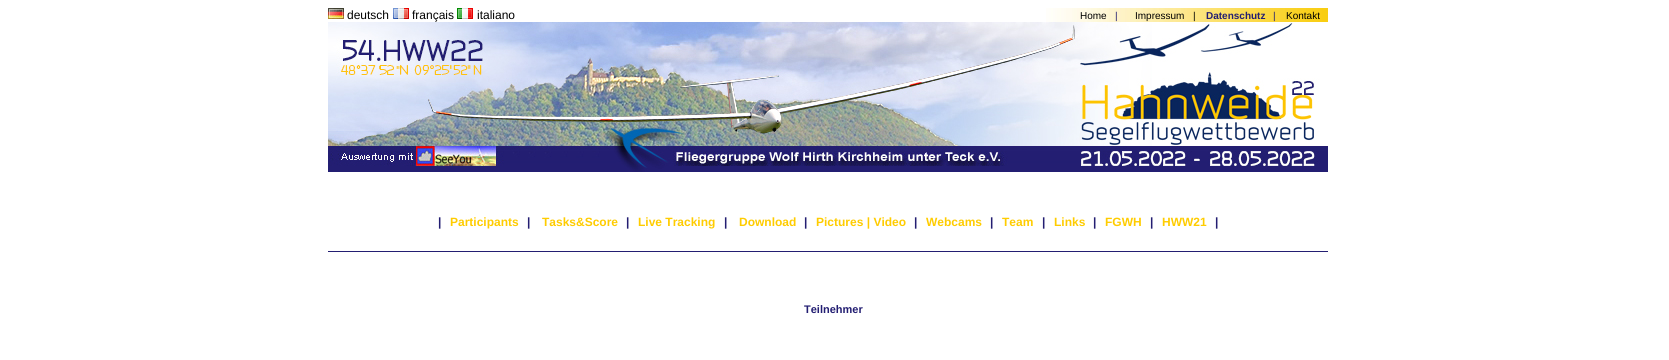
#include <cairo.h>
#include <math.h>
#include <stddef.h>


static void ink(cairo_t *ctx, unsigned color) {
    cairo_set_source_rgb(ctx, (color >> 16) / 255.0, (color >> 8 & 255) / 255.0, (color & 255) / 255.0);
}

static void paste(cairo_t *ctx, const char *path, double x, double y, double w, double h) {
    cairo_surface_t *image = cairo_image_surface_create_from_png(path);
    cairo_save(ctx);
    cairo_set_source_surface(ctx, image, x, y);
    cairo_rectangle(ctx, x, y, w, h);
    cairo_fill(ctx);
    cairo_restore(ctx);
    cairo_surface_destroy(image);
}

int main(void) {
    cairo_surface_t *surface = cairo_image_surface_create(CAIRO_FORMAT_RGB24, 1669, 360);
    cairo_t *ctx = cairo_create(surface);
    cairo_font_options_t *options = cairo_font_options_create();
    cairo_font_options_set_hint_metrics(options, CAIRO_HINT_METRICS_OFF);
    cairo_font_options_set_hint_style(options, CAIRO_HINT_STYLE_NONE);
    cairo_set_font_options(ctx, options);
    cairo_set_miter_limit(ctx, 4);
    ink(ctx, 0xFFFFFF);
    cairo_paint(ctx);
    paste(ctx, "media/1.png", 328, 8, 16, 11);
    cairo_select_font_face(ctx, "Liberation Sans", CAIRO_FONT_SLANT_NORMAL, CAIRO_FONT_WEIGHT_NORMAL);
    cairo_set_font_size(ctx, 12);
    ink(ctx, 0x000000);
    cairo_move_to(ctx, 347, 19);
    cairo_show_text(ctx, "deutsch");
    paste(ctx, "media/2.png", 393, 8, 16, 11);
    cairo_move_to(ctx, 412, 19);
    cairo_show_text(ctx, "français");
    paste(ctx, "media/3.png", 457, 8, 16, 11);
    cairo_move_to(ctx, 477, 19);
    cairo_show_text(ctx, "italiano");
    paste(ctx, "media/4.png", 1046, 8, 282, 14);
    cairo_set_font_size(ctx, 10);
    cairo_move_to(ctx, 1080, 19);
    cairo_show_text(ctx, "Home");
    ink(ctx, 0x231E72);
    cairo_move_to(ctx, 1115, 19);
    cairo_show_text(ctx, "|");
    ink(ctx, 0x000000);
    cairo_move_to(ctx, 1135, 19);
    cairo_show_text(ctx, "Impressum");
    cairo_move_to(ctx, 1193, 19);
    cairo_show_text(ctx, "|");
    cairo_select_font_face(ctx, "Liberation Sans", CAIRO_FONT_SLANT_NORMAL, CAIRO_FONT_WEIGHT_BOLD);
    ink(ctx, 0x231E72);
    cairo_move_to(ctx, 1206, 19);
    cairo_show_text(ctx, "Datenschutz");
    cairo_select_font_face(ctx, "Liberation Sans", CAIRO_FONT_SLANT_NORMAL, CAIRO_FONT_WEIGHT_NORMAL);
    cairo_move_to(ctx, 1273, 19);
    cairo_show_text(ctx, "|");
    ink(ctx, 0x000000);
    cairo_move_to(ctx, 1286, 19);
    cairo_show_text(ctx, "Kontakt");
    paste(ctx, "media/5.png", 328, 22, 1000, 150);
    cairo_select_font_face(ctx, "Liberation Sans", CAIRO_FONT_SLANT_NORMAL, CAIRO_FONT_WEIGHT_BOLD);
    cairo_set_font_size(ctx, 12);
    ink(ctx, 0x231E72);
    cairo_move_to(ctx, 438, 226);
    cairo_show_text(ctx, "|");
    ink(ctx, 0xFFCC00);
    cairo_move_to(ctx, 450, 226);
    cairo_show_text(ctx, "Participants");
    ink(ctx, 0x231E72);
    cairo_move_to(ctx, 527, 226);
    cairo_show_text(ctx, "|");
    ink(ctx, 0xFFCC00);
    cairo_move_to(ctx, 542, 226);
    cairo_show_text(ctx, "Tasks&Score");
    ink(ctx, 0x231E72);
    cairo_move_to(ctx, 626, 226);
    cairo_show_text(ctx, "|");
    ink(ctx, 0xFFCC00);
    cairo_move_to(ctx, 638, 226);
    cairo_show_text(ctx, "Live Tracking");
    ink(ctx, 0x231E72);
    cairo_move_to(ctx, 724, 226);
    cairo_show_text(ctx, "|");
    ink(ctx, 0xFFCC00);
    cairo_move_to(ctx, 739, 226);
    cairo_show_text(ctx, "Download");
    ink(ctx, 0x231E72);
    cairo_move_to(ctx, 804, 226);
    cairo_show_text(ctx, "|");
    ink(ctx, 0xFFCC00);
    cairo_move_to(ctx, 816, 226);
    cairo_show_text(ctx, "Pictures | Video");
    ink(ctx, 0x231E72);
    cairo_move_to(ctx, 914, 226);
    cairo_show_text(ctx, "|");
    ink(ctx, 0xFFCC00);
    cairo_move_to(ctx, 926, 226);
    cairo_show_text(ctx, "Webcams");
    ink(ctx, 0x231E72);
    cairo_move_to(ctx, 990, 226);
    cairo_show_text(ctx, "|");
    ink(ctx, 0xFFCC00);
    cairo_move_to(ctx, 1002, 226);
    cairo_show_text(ctx, "Team");
    ink(ctx, 0x231E72);
    cairo_move_to(ctx, 1042, 226);
    cairo_show_text(ctx, "|");
    ink(ctx, 0xFFCC00);
    cairo_move_to(ctx, 1054, 226);
    cairo_show_text(ctx, "Links");
    ink(ctx, 0x231E72);
    cairo_move_to(ctx, 1093, 226);
    cairo_show_text(ctx, "|");
    ink(ctx, 0xFFCC00);
    cairo_move_to(ctx, 1105, 226);
    cairo_show_text(ctx, "FGWH");
    ink(ctx, 0x231E72);
    cairo_move_to(ctx, 1150, 226);
    cairo_show_text(ctx, "|");
    ink(ctx, 0xFFCC00);
    cairo_move_to(ctx, 1162, 226);
    cairo_show_text(ctx, "HWW21");
    ink(ctx, 0x231E72);
    cairo_move_to(ctx, 1215, 226);
    cairo_show_text(ctx, "|");
    cairo_rectangle(ctx, 328, 251, 1000, 1);
    cairo_fill(ctx);
    cairo_set_font_size(ctx, 11);
    cairo_move_to(ctx, 804, 313);
    cairo_show_text(ctx, "Teilnehmer");
    cairo_surface_write_to_png(surface, "image.png");
    cairo_font_options_destroy(options);
    cairo_destroy(ctx);
    cairo_surface_destroy(surface);
    return 0;
}
